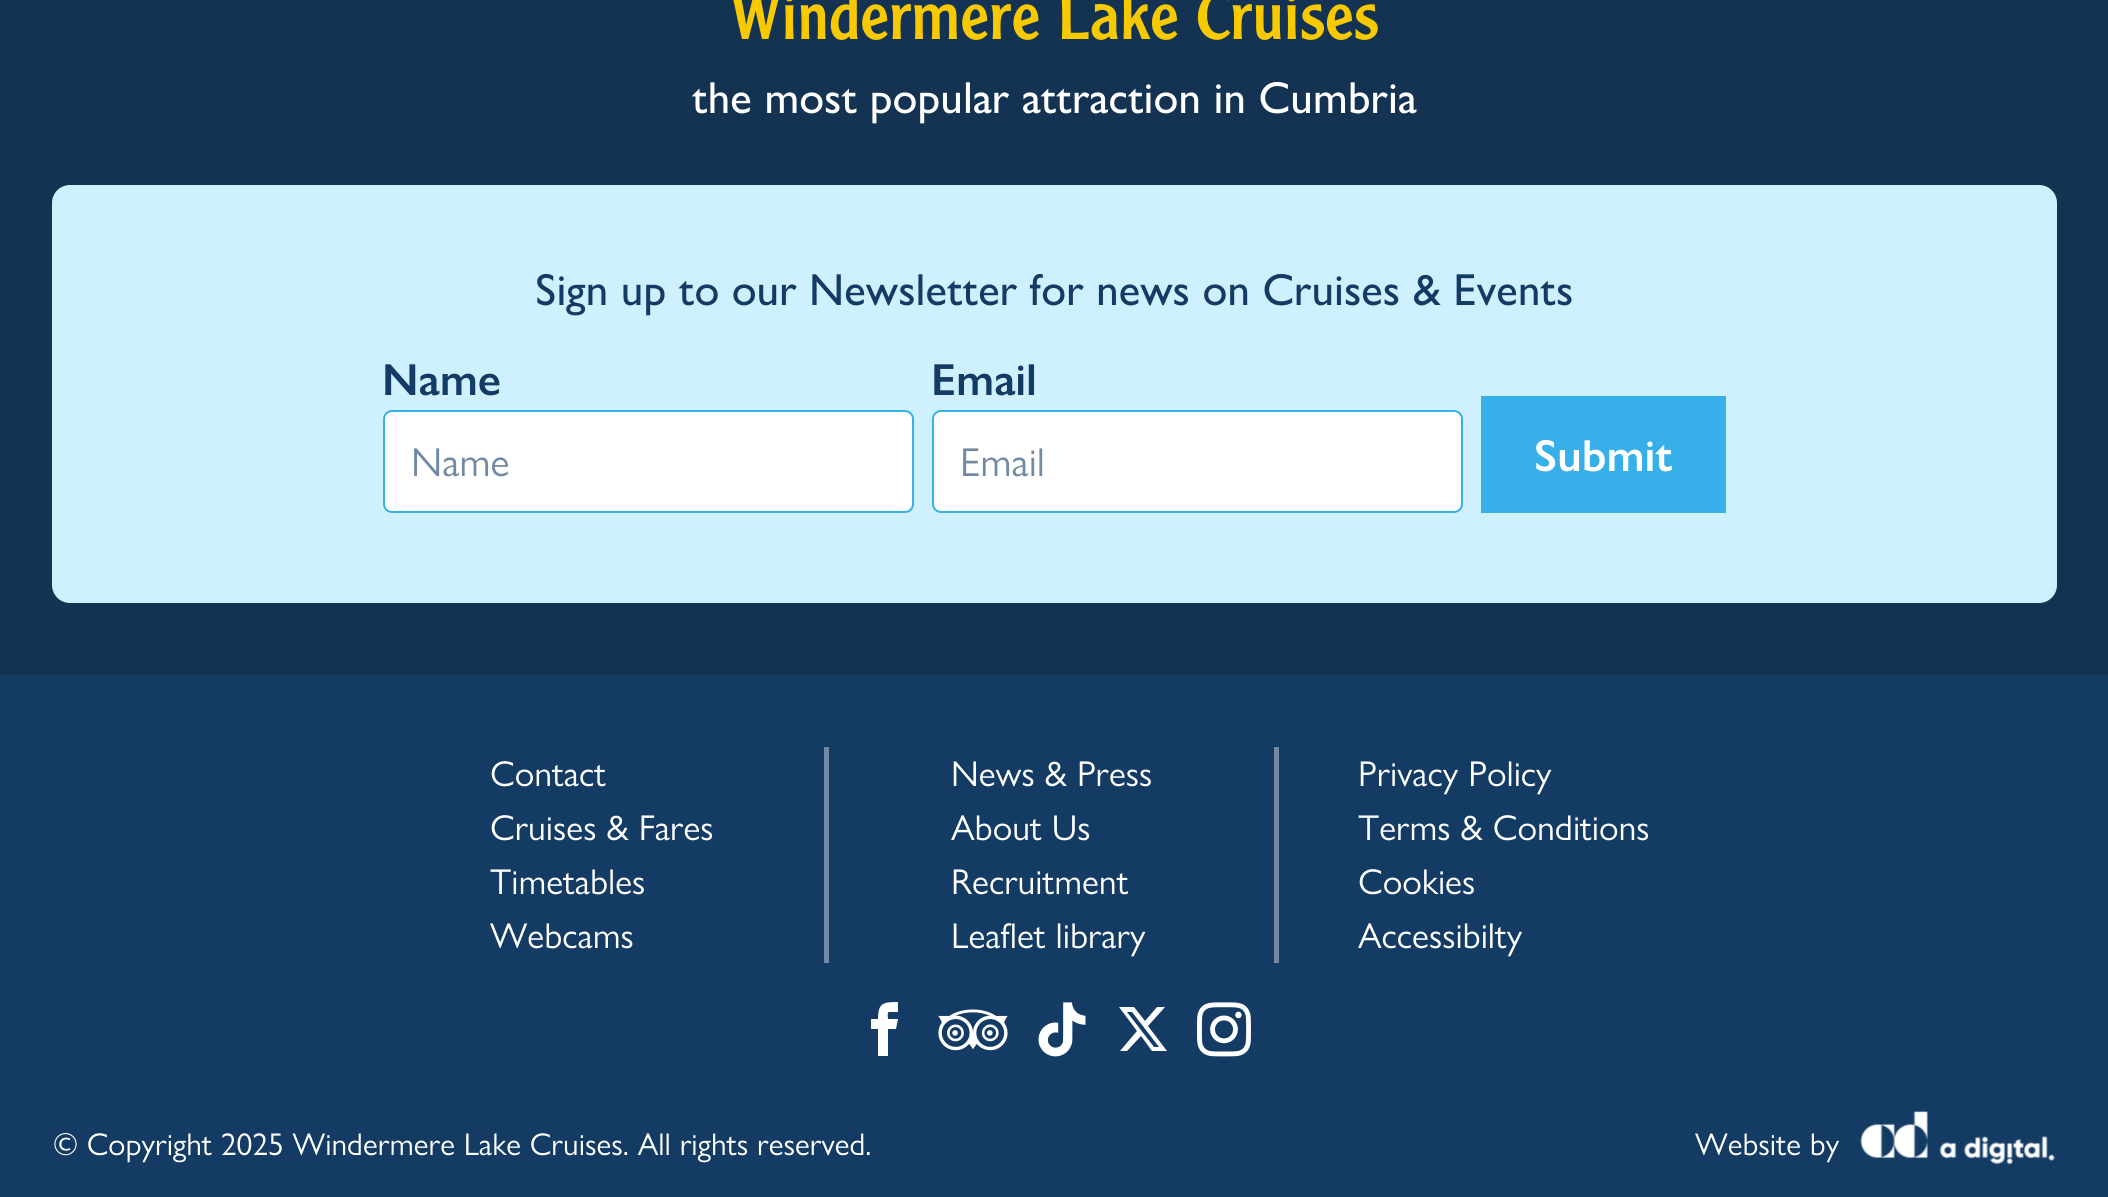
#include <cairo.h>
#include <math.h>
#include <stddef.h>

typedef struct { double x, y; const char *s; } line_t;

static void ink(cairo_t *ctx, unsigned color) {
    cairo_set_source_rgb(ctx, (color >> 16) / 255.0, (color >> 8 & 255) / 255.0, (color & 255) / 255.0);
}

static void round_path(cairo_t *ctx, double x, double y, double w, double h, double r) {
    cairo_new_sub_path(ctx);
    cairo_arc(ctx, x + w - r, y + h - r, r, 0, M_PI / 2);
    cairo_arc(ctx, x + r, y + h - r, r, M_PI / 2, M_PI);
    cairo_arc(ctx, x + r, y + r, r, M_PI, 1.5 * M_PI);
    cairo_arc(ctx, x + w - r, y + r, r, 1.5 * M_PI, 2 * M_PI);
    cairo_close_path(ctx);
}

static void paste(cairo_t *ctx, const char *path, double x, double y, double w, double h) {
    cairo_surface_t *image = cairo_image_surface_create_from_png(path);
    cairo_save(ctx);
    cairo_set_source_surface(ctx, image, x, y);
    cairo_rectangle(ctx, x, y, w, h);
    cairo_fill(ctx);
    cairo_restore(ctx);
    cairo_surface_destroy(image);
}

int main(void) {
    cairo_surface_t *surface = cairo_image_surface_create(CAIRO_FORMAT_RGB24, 2108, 1197);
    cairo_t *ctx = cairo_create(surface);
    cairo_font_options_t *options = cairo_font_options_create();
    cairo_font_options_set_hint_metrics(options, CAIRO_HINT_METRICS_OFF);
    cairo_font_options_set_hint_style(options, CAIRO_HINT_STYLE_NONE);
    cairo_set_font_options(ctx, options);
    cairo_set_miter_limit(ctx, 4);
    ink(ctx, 0x143353);
    cairo_paint(ctx);
    cairo_select_font_face(ctx, "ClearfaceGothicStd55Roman", CAIRO_FONT_SLANT_NORMAL, CAIRO_FONT_WEIGHT_NORMAL);
    cairo_set_font_size(ctx, 67.5);
    ink(ctx, 0xF6C900);
    cairo_move_to(ctx, 730, 39);
    cairo_show_text(ctx, "Windermere Lake Cruises");
    cairo_select_font_face(ctx, "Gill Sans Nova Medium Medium", CAIRO_FONT_SLANT_NORMAL, CAIRO_FONT_WEIGHT_NORMAL);
    cairo_set_font_size(ctx, 45);
    ink(ctx, 0xFFFFFF);
    cairo_move_to(ctx, 692, 113);
    cairo_show_text(ctx, "the most popular attraction in Cumbria");
    ink(ctx, 0xCFF1FF);
    round_path(ctx, 52, 185, 2005, 418, 18);
    cairo_fill(ctx);
    ink(ctx, 0x133B64);
    cairo_move_to(ctx, 535, 305);
    cairo_show_text(ctx, "Sign up to our Newsletter for news on Cruises & Events");
    cairo_select_font_face(ctx, "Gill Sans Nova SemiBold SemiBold", CAIRO_FONT_SLANT_NORMAL, CAIRO_FONT_WEIGHT_NORMAL);
    cairo_move_to(ctx, 382, 395);
    cairo_show_text(ctx, "Name");
    ink(ctx, 0xFFFFFF);
    round_path(ctx, 384, 411, 529, 101, 8);
    cairo_fill_preserve(ctx);
    ink(ctx, 0x37B0EA);
    cairo_stroke(ctx);
    cairo_select_font_face(ctx, "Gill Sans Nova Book", CAIRO_FONT_SLANT_NORMAL, CAIRO_FONT_WEIGHT_NORMAL);
    cairo_set_font_size(ctx, 40.5);
    ink(ctx, 0x7189A2);
    cairo_move_to(ctx, 411, 476);
    cairo_show_text(ctx, "Name");
    cairo_select_font_face(ctx, "Gill Sans Nova SemiBold SemiBold", CAIRO_FONT_SLANT_NORMAL, CAIRO_FONT_WEIGHT_NORMAL);
    cairo_set_font_size(ctx, 45);
    ink(ctx, 0x133B64);
    cairo_move_to(ctx, 931, 395);
    cairo_show_text(ctx, "Email");
    ink(ctx, 0xFFFFFF);
    round_path(ctx, 933, 411, 529, 101, 8);
    cairo_fill_preserve(ctx);
    ink(ctx, 0x37B0EA);
    cairo_stroke(ctx);
    cairo_select_font_face(ctx, "Gill Sans Nova Book", CAIRO_FONT_SLANT_NORMAL, CAIRO_FONT_WEIGHT_NORMAL);
    cairo_set_font_size(ctx, 40.5);
    ink(ctx, 0x7189A2);
    cairo_move_to(ctx, 960, 476);
    cairo_show_text(ctx, "Email");
    ink(ctx, 0x37B0EA);
    cairo_rectangle(ctx, 1481, 396, 245, 117);
    cairo_fill(ctx);
    cairo_select_font_face(ctx, "Gill Sans Nova SemiBold SemiBold", CAIRO_FONT_SLANT_NORMAL, CAIRO_FONT_WEIGHT_NORMAL);
    cairo_set_font_size(ctx, 45);
    ink(ctx, 0xFFFFFF);
    cairo_move_to(ctx, 1534, 471);
    cairo_show_text(ctx, "Submit");
    ink(ctx, 0x133B64);
    cairo_rectangle(ctx, 0, 675, 2108, 522);
    cairo_fill(ctx);
    ink(ctx, 0x7189A2);
    cairo_rectangle(ctx, 824, 747, 5, 216);
    cairo_fill(ctx);
    cairo_select_font_face(ctx, "Gill Sans Nova Book", CAIRO_FONT_SLANT_NORMAL, CAIRO_FONT_WEIGHT_NORMAL);
    cairo_set_font_size(ctx, 36);
    ink(ctx, 0xFFFFFF);
    {
        static const line_t items[] = {
            {490, 786, "Contact"},
            {490, 840, "Cruises & Fares"},
            {490, 894, "Timetables"},
            {490, 948, "Webcams"},
        };
        for (size_t i = 0; i < sizeof items / sizeof *items; i++) {
            cairo_move_to(ctx, items[i].x, items[i].y);
            cairo_show_text(ctx, items[i].s);
        }
    }
    ink(ctx, 0x7189A2);
    cairo_rectangle(ctx, 1274, 747, 5, 216);
    cairo_fill(ctx);
    ink(ctx, 0xFFFFFF);
    {
        static const line_t items[] = {
            {951, 786, "News & Press"},
            {951, 840, "About Us"},
            {951, 894, "Recruitment"},
            {951, 948, "Leaflet library"},
            {1358, 786, "Privacy Policy"},
            {1358, 840, "Terms & Conditions"},
            {1358, 894, "Cookies"},
            {1358, 948, "Accessibilty"},
        };
        for (size_t i = 0; i < sizeof items / sizeof *items; i++) {
            cairo_move_to(ctx, items[i].x, items[i].y);
            cairo_show_text(ctx, items[i].s);
        }
    }
    cairo_new_path(ctx);
    cairo_move_to(ctx, 889, 1012);
    cairo_line_to(ctx, 898, 1012);
    cairo_line_to(ctx, 898, 1002);
    cairo_curve_to(ctx, 883, 1002, 878, 1003, 878, 1019);
    cairo_line_to(ctx, 871, 1019);
    cairo_line_to(ctx, 871, 1029);
    cairo_line_to(ctx, 878, 1029);
    cairo_line_to(ctx, 878, 1056);
    cairo_line_to(ctx, 888, 1056);
    cairo_line_to(ctx, 888, 1029);
    cairo_line_to(ctx, 896, 1029);
    cairo_line_to(ctx, 898, 1019);
    cairo_line_to(ctx, 888, 1019);
    cairo_curve_to(ctx, 888, 1018, 887, 1012, 889, 1012);
    cairo_close_path(ctx);
    cairo_fill(ctx);
    paste(ctx, "media/1.png", 938, 1009, 70, 42);
    paste(ctx, "media/2.png", 1038, 1002, 48, 55);
    cairo_new_path(ctx);
    cairo_move_to(ctx, 1157, 1007);
    cairo_line_to(ctx, 1165, 1007);
    cairo_line_to(ctx, 1148, 1026);
    cairo_line_to(ctx, 1167, 1051);
    cairo_line_to(ctx, 1152, 1051);
    cairo_line_to(ctx, 1141, 1036);
    cairo_line_to(ctx, 1127, 1051);
    cairo_line_to(ctx, 1120, 1051);
    cairo_line_to(ctx, 1137, 1031);
    cairo_line_to(ctx, 1119, 1007);
    cairo_line_to(ctx, 1134, 1007);
    cairo_line_to(ctx, 1145, 1021);
    cairo_close_path(ctx);
    cairo_move_to(ctx, 1154, 1047);
    cairo_line_to(ctx, 1159, 1047);
    cairo_line_to(ctx, 1132, 1012);
    cairo_line_to(ctx, 1127, 1012);
    cairo_close_path(ctx);
    cairo_fill(ctx);
    paste(ctx, "media/3.png", 1197, 1002, 54, 55);
    cairo_set_font_size(ctx, 31.5);
    cairo_move_to(ctx, 53, 1155);
    cairo_show_text(ctx, "© Copyright 2025 Windermere Lake Cruises. All rights reserved.");
    cairo_move_to(ctx, 1695, 1155);
    cairo_show_text(ctx, "Website by");
    paste(ctx, "media/4.png", 1860, 1111, 195, 54);
    cairo_surface_write_to_png(surface, "image.png");
    cairo_font_options_destroy(options);
    cairo_destroy(ctx);
    cairo_surface_destroy(surface);
    return 0;
}
